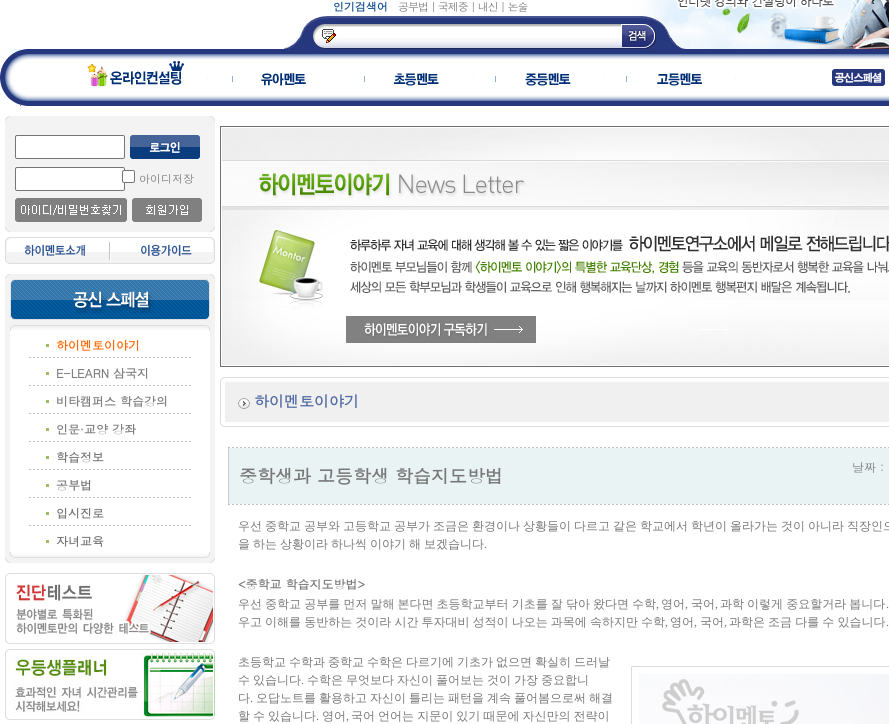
#include <cairo.h>
#include <math.h>
#include <stddef.h>

typedef struct { double x, y, w, h; unsigned color; } box_t;

static void ink(cairo_t *ctx, unsigned color) {
    cairo_set_source_rgb(ctx, (color >> 16) / 255.0, (color >> 8 & 255) / 255.0, (color & 255) / 255.0);
}

static void write_spaced(cairo_t *ctx, double x, double y, const char *s, double letter, double word) {
    cairo_move_to(ctx, x, y);
    while (*s) {
        char ch[5] = {0};
        int n = 0;
        do ch[n++] = *s++; while ((*s & 0xC0) == 0x80);
        cairo_show_text(ctx, ch);
        cairo_rel_move_to(ctx, letter + word * (*ch == ' '), 0);
    }
}

static void round_path(cairo_t *ctx, double x, double y, double w, double h, double r) {
    cairo_new_sub_path(ctx);
    cairo_arc(ctx, x + w - r, y + h - r, r, 0, M_PI / 2);
    cairo_arc(ctx, x + r, y + h - r, r, M_PI / 2, M_PI);
    cairo_arc(ctx, x + r, y + r, r, M_PI, 1.5 * M_PI);
    cairo_arc(ctx, x + w - r, y + r, r, 1.5 * M_PI, 2 * M_PI);
    cairo_close_path(ctx);
}

static void paste(cairo_t *ctx, const char *path, double x, double y, double w, double h) {
    cairo_surface_t *image = cairo_image_surface_create_from_png(path);
    cairo_save(ctx);
    cairo_set_source_surface(ctx, image, x, y);
    cairo_rectangle(ctx, x, y, w, h);
    cairo_fill(ctx);
    cairo_restore(ctx);
    cairo_surface_destroy(image);
}

int main(void) {
    cairo_surface_t *surface = cairo_image_surface_create(CAIRO_FORMAT_RGB24, 889, 724);
    cairo_t *ctx = cairo_create(surface);
    cairo_font_options_t *options = cairo_font_options_create();
    cairo_font_options_set_hint_metrics(options, CAIRO_HINT_METRICS_OFF);
    cairo_font_options_set_hint_style(options, CAIRO_HINT_STYLE_NONE);
    cairo_set_font_options(ctx, options);
    cairo_set_miter_limit(ctx, 4);
    ink(ctx, 0xFFFFFF);
    cairo_paint(ctx);
    paste(ctx, "media/1.png", 20, 0, 869, 106);
    cairo_select_font_face(ctx, "Dotum", CAIRO_FONT_SLANT_NORMAL, CAIRO_FONT_WEIGHT_BOLD);
    cairo_set_font_size(ctx, 11);
    ink(ctx, 0x0E4D90);
    cairo_move_to(ctx, 333, 11);
    cairo_show_text(ctx, "인기검색어");
    cairo_select_font_face(ctx, "Dotum", CAIRO_FONT_SLANT_NORMAL, CAIRO_FONT_WEIGHT_NORMAL);
    ink(ctx, 0x777777);
    write_spaced(ctx, 398, 11, "공부법 | 국제중 | 내신 | 논술", -1, 0);
    paste(ctx, "media/2.png", 284, 16, 58, 33);
    paste(ctx, "media/3.png", 342, 16, 279, 33);
    paste(ctx, "media/4.png", 621, 16, 35, 8);
    paste(ctx, "media/5.png", 621, 24, 35, 25);
    paste(ctx, "media/6.png", 656, 19, 30, 30);
    paste(ctx, "media/7.png", 0, 49, 30, 57);
    paste(ctx, "media/8.png", 30, 49, 859, 57);
    paste(ctx, "media/9.png", 87, 61, 121, 26);
    paste(ctx, "media/10.png", 232, 73, 110, 13);
    paste(ctx, "media/11.png", 364, 73, 110, 13);
    paste(ctx, "media/12.png", 495, 73, 110, 13);
    paste(ctx, "media/13.png", 626, 73, 110, 13);
    paste(ctx, "media/14.png", 832, 69, 53, 17);
    paste(ctx, "media/15.png", 5, 116, 5, 5);
    ink(ctx, 0xF3F3F3);
    cairo_rectangle(ctx, 10, 116, 200, 5);
    cairo_fill(ctx);
    paste(ctx, "media/16.png", 210, 116, 5, 5);
    cairo_rectangle(ctx, 5, 121, 210, 106);
    cairo_fill(ctx);
    ink(ctx, 0xFFFFFF);
    round_path(ctx, 15.5, 135.5, 109, 23, 1.5);
    cairo_fill_preserve(ctx);
    ink(ctx, 0x767676);
    cairo_set_line_width(ctx, 1);
    cairo_stroke(ctx);
    paste(ctx, "media/17.png", 130, 135, 70, 24);
    ink(ctx, 0xFFFFFF);
    round_path(ctx, 15.5, 167.5, 109, 23, 1.5);
    cairo_fill_preserve(ctx);
    ink(ctx, 0x767676);
    cairo_stroke(ctx);
    ink(ctx, 0xFFFFFF);
    round_path(ctx, 122.5, 170.5, 12, 12, 1.5);
    cairo_fill_preserve(ctx);
    ink(ctx, 0x767676);
    cairo_stroke(ctx);
    ink(ctx, 0x777777);
    cairo_move_to(ctx, 139, 183);
    cairo_show_text(ctx, "아이디저장");
    paste(ctx, "media/18.png", 15, 198, 112, 24);
    paste(ctx, "media/19.png", 132, 198, 70, 24);
    paste(ctx, "media/20.png", 5, 227, 5, 5);
    ink(ctx, 0xF3F3F3);
    cairo_rectangle(ctx, 10, 227, 200, 5);
    cairo_fill(ctx);
    paste(ctx, "media/21.png", 210, 227, 5, 5);
    paste(ctx, "media/22.png", 5, 237, 105, 27);
    paste(ctx, "media/23.png", 110, 237, 105, 27);
    paste(ctx, "media/15.png", 5, 274, 5, 5);
    cairo_rectangle(ctx, 10, 274, 200, 5);
    cairo_fill(ctx);
    paste(ctx, "media/16.png", 210, 274, 5, 5);
    cairo_rectangle(ctx, 5, 279, 5, 279);
    cairo_fill(ctx);
    cairo_rectangle(ctx, 10, 320, 200, 5);
    cairo_fill(ctx);
    paste(ctx, "media/24.png", 10, 279, 200, 41);
    paste(ctx, "media/25.png", 10, 325, 200, 6);
    ink(ctx, 0xA1BB62);
    cairo_rectangle(ctx, 46, 344, 3, 3);
    cairo_fill(ctx);
    cairo_select_font_face(ctx, "Dotum", CAIRO_FONT_SLANT_NORMAL, CAIRO_FONT_WEIGHT_BOLD);
    cairo_set_font_size(ctx, 12);
    ink(ctx, 0xFF6600);
    cairo_move_to(ctx, 56, 350);
    cairo_show_text(ctx, "하이멘토이야기");
    paste(ctx, "media/26.png", 29, 357, 162, 1);
    ink(ctx, 0xA1BB62);
    cairo_rectangle(ctx, 46, 372, 3, 3);
    cairo_fill(ctx);
    ink(ctx, 0x7F7F7F);
    cairo_move_to(ctx, 56, 378);
    cairo_show_text(ctx, "E-LEARN 삼국지");
    paste(ctx, "media/26.png", 29, 385, 162, 1);
    ink(ctx, 0xA1BB62);
    cairo_rectangle(ctx, 46, 400, 3, 3);
    cairo_fill(ctx);
    ink(ctx, 0x7F7F7F);
    cairo_move_to(ctx, 56, 406);
    cairo_show_text(ctx, "비타캠퍼스 학습강의");
    paste(ctx, "media/26.png", 29, 413, 162, 1);
    ink(ctx, 0xA1BB62);
    cairo_rectangle(ctx, 46, 428, 3, 3);
    cairo_fill(ctx);
    ink(ctx, 0x7F7F7F);
    cairo_move_to(ctx, 56, 434);
    cairo_show_text(ctx, "인문·교양 강좌");
    paste(ctx, "media/26.png", 29, 441, 162, 1);
    ink(ctx, 0xA1BB62);
    cairo_rectangle(ctx, 46, 456, 3, 3);
    cairo_fill(ctx);
    ink(ctx, 0x777777);
    cairo_move_to(ctx, 56, 462);
    cairo_show_text(ctx, "학습정보");
    paste(ctx, "media/26.png", 29, 469, 162, 1);
    ink(ctx, 0xA1BB62);
    cairo_rectangle(ctx, 46, 484, 3, 3);
    cairo_fill(ctx);
    ink(ctx, 0x777777);
    cairo_move_to(ctx, 56, 490);
    cairo_show_text(ctx, "공부법");
    paste(ctx, "media/26.png", 29, 497, 162, 1);
    ink(ctx, 0xA1BB62);
    cairo_rectangle(ctx, 46, 512, 3, 3);
    cairo_fill(ctx);
    ink(ctx, 0x777777);
    cairo_move_to(ctx, 56, 518);
    cairo_show_text(ctx, "입시진로");
    paste(ctx, "media/26.png", 29, 525, 162, 1);
    ink(ctx, 0xA1BB62);
    cairo_rectangle(ctx, 46, 540, 3, 3);
    cairo_fill(ctx);
    ink(ctx, 0x777777);
    cairo_move_to(ctx, 56, 546);
    cairo_show_text(ctx, "자녀교육");
    paste(ctx, "media/27.png", 10, 552, 200, 6);
    ink(ctx, 0xF3F3F3);
    cairo_rectangle(ctx, 210, 279, 5, 279);
    cairo_fill(ctx);
    paste(ctx, "media/20.png", 5, 558, 5, 5);
    cairo_rectangle(ctx, 10, 558, 200, 5);
    cairo_fill(ctx);
    paste(ctx, "media/21.png", 210, 558, 5, 5);
    paste(ctx, "media/28.png", 5, 573, 210, 71);
    paste(ctx, "media/29.png", 5, 649, 210, 71);
    paste(ctx, "media/30.png", 220, 126, 669, 241);
    paste(ctx, "media/31.png", 346, 316, 190, 27);
    paste(ctx, "media/32.png", 220, 377, 5, 5);
    {
        static const box_t items[] = {
            {225, 377, 664, 1, 0xDEDEDE},
            {220, 382, 1, 40, 0xDEDEDE},
            {225, 382, 664, 40, 0xF0F0F0},
        };
        for (size_t i = 0; i < sizeof items / sizeof *items; i++) {
            ink(ctx, items[i].color);
            cairo_rectangle(ctx, items[i].x, items[i].y, items[i].w, items[i].h);
            cairo_fill(ctx);
        }
    }
    paste(ctx, "media/33.png", 238, 398, 12, 11);
    cairo_set_font_size(ctx, 15);
    ink(ctx, 0x536AA3);
    cairo_move_to(ctx, 254, 407);
    cairo_show_text(ctx, "하이멘토이야기");
    paste(ctx, "media/34.png", 220, 422, 5, 5);
    ink(ctx, 0xDEDEDE);
    cairo_rectangle(ctx, 225, 426, 664, 1);
    cairo_fill(ctx);
    paste(ctx, "media/35.png", 228, 447, 661, 1);
    ink(ctx, 0xC8D1CE);
    cairo_rectangle(ctx, 228, 448, 1, 56);
    cairo_fill(ctx);
    ink(ctx, 0xE9F3F3);
    cairo_rectangle(ctx, 229, 448, 660, 56);
    cairo_fill(ctx);
    cairo_set_font_size(ctx, 18);
    ink(ctx, 0x777777);
    cairo_move_to(ctx, 239, 483);
    cairo_show_text(ctx, "중학생과 고등학생 학습지도방법");
    cairo_select_font_face(ctx, "Dotum", CAIRO_FONT_SLANT_NORMAL, CAIRO_FONT_WEIGHT_NORMAL);
    cairo_set_font_size(ctx, 12);
    cairo_move_to(ctx, 852, 472);
    cairo_show_text(ctx, "날짜 :");
    paste(ctx, "media/35.png", 228, 504, 661, 1);
    cairo_select_font_face(ctx, "WenQuanYi Zen Hei Medium", CAIRO_FONT_SLANT_NORMAL, CAIRO_FONT_WEIGHT_NORMAL);
    write_spaced(ctx, 238, 530, "우선 중학교 공부와 고등학교 공부가 조금은 환경이나 상황들이 다르고 같은 학교에서 학년이 올라가는 것이 아니라 직장인으", 0, -0.6);
    write_spaced(ctx, 238, 548, "을 하는 상황이라 하나씩 이야기 해 보겠습니다", 0, -0.6);
    cairo_select_font_face(ctx, "Liberation Serif", CAIRO_FONT_SLANT_NORMAL, CAIRO_FONT_WEIGHT_NORMAL);
    cairo_move_to(ctx, 484, 548);
    cairo_show_text(ctx, ".");
    cairo_select_font_face(ctx, "Dotum", CAIRO_FONT_SLANT_NORMAL, CAIRO_FONT_WEIGHT_BOLD);
    cairo_move_to(ctx, 238, 589);
    cairo_show_text(ctx, "<중학교 학습지도방법>");
    cairo_select_font_face(ctx, "WenQuanYi Zen Hei Medium", CAIRO_FONT_SLANT_NORMAL, CAIRO_FONT_WEIGHT_NORMAL);
    write_spaced(ctx, 238, 608, "우선 중학교 공부를 먼저 말해 본다면 초등학교부터 기초를 잘 닦아 왔다면 수학", 0, -0.5);
    cairo_select_font_face(ctx, "Liberation Serif", CAIRO_FONT_SLANT_NORMAL, CAIRO_FONT_WEIGHT_NORMAL);
    cairo_move_to(ctx, 656, 608);
    cairo_show_text(ctx, ",");
    cairo_select_font_face(ctx, "WenQuanYi Zen Hei Medium", CAIRO_FONT_SLANT_NORMAL, CAIRO_FONT_WEIGHT_NORMAL);
    cairo_move_to(ctx, 661, 608);
    cairo_show_text(ctx, "영어");
    cairo_select_font_face(ctx, "Liberation Serif", CAIRO_FONT_SLANT_NORMAL, CAIRO_FONT_WEIGHT_NORMAL);
    cairo_move_to(ctx, 685, 608);
    cairo_show_text(ctx, ",");
    cairo_select_font_face(ctx, "WenQuanYi Zen Hei Medium", CAIRO_FONT_SLANT_NORMAL, CAIRO_FONT_WEIGHT_NORMAL);
    cairo_move_to(ctx, 691, 608);
    cairo_show_text(ctx, "국어");
    cairo_select_font_face(ctx, "Liberation Serif", CAIRO_FONT_SLANT_NORMAL, CAIRO_FONT_WEIGHT_NORMAL);
    cairo_move_to(ctx, 715, 608);
    cairo_show_text(ctx, ",");
    cairo_select_font_face(ctx, "WenQuanYi Zen Hei Medium", CAIRO_FONT_SLANT_NORMAL, CAIRO_FONT_WEIGHT_NORMAL);
    write_spaced(ctx, 720, 608, "과학 이렇게 중요할거라 봅니다", 0, -0.5);
    cairo_select_font_face(ctx, "Liberation Serif", CAIRO_FONT_SLANT_NORMAL, CAIRO_FONT_WEIGHT_NORMAL);
    cairo_move_to(ctx, 886, 608);
    cairo_show_text(ctx, ".");
    cairo_select_font_face(ctx, "WenQuanYi Zen Hei Medium", CAIRO_FONT_SLANT_NORMAL, CAIRO_FONT_WEIGHT_NORMAL);
    write_spaced(ctx, 238, 626, "우고 이해를 동반하는 것이라 시간 투자대비 성적이 나오는 과목에 속하지만 수학", 0, -0.5);
    cairo_select_font_face(ctx, "Liberation Serif", CAIRO_FONT_SLANT_NORMAL, CAIRO_FONT_WEIGHT_NORMAL);
    cairo_move_to(ctx, 665, 626);
    cairo_show_text(ctx, ",");
    cairo_select_font_face(ctx, "WenQuanYi Zen Hei Medium", CAIRO_FONT_SLANT_NORMAL, CAIRO_FONT_WEIGHT_NORMAL);
    cairo_move_to(ctx, 670, 626);
    cairo_show_text(ctx, "영어");
    cairo_select_font_face(ctx, "Liberation Serif", CAIRO_FONT_SLANT_NORMAL, CAIRO_FONT_WEIGHT_NORMAL);
    cairo_move_to(ctx, 694, 626);
    cairo_show_text(ctx, ",");
    cairo_select_font_face(ctx, "WenQuanYi Zen Hei Medium", CAIRO_FONT_SLANT_NORMAL, CAIRO_FONT_WEIGHT_NORMAL);
    cairo_move_to(ctx, 700, 626);
    cairo_show_text(ctx, "국어");
    cairo_select_font_face(ctx, "Liberation Serif", CAIRO_FONT_SLANT_NORMAL, CAIRO_FONT_WEIGHT_NORMAL);
    cairo_move_to(ctx, 724, 626);
    cairo_show_text(ctx, ",");
    cairo_select_font_face(ctx, "WenQuanYi Zen Hei Medium", CAIRO_FONT_SLANT_NORMAL, CAIRO_FONT_WEIGHT_NORMAL);
    write_spaced(ctx, 729, 626, "과학은 조금 다를 수 있습니다", 0, -0.5);
    cairo_select_font_face(ctx, "Liberation Serif", CAIRO_FONT_SLANT_NORMAL, CAIRO_FONT_WEIGHT_NORMAL);
    cairo_move_to(ctx, 886, 626);
    cairo_show_text(ctx, ".");
    cairo_select_font_face(ctx, "WenQuanYi Zen Hei Medium", CAIRO_FONT_SLANT_NORMAL, CAIRO_FONT_WEIGHT_NORMAL);
    write_spaced(ctx, 238, 666, "초등학교 수학과 중학교 수학은 다르기에 기초가 없으면 확실히 드러날", 0, -0.6);
    write_spaced(ctx, 238, 684, "수 있습니다", 0, -0.6);
    cairo_select_font_face(ctx, "Liberation Serif", CAIRO_FONT_SLANT_NORMAL, CAIRO_FONT_WEIGHT_NORMAL);
    cairo_move_to(ctx, 301, 684);
    cairo_show_text(ctx, ".");
    cairo_select_font_face(ctx, "WenQuanYi Zen Hei Medium", CAIRO_FONT_SLANT_NORMAL, CAIRO_FONT_WEIGHT_NORMAL);
    write_spaced(ctx, 307, 684, "수학은 무엇보다 자신이 풀어보는 것이 가장 중요합니", 0, -0.6);
    cairo_move_to(ctx, 238, 702);
    cairo_show_text(ctx, "다");
    cairo_select_font_face(ctx, "Liberation Serif", CAIRO_FONT_SLANT_NORMAL, CAIRO_FONT_WEIGHT_NORMAL);
    cairo_move_to(ctx, 250, 702);
    cairo_show_text(ctx, ".");
    cairo_select_font_face(ctx, "WenQuanYi Zen Hei Medium", CAIRO_FONT_SLANT_NORMAL, CAIRO_FONT_WEIGHT_NORMAL);
    write_spaced(ctx, 256, 702, "오답노트를 활용하고 자신이 틀리는 패턴을 계속 풀어봄으로써 해결", 0, -0.6);
    write_spaced(ctx, 238, 720, "할 수 있습니다", 0, -0.6);
    cairo_select_font_face(ctx, "Liberation Serif", CAIRO_FONT_SLANT_NORMAL, CAIRO_FONT_WEIGHT_NORMAL);
    cairo_move_to(ctx, 316, 720);
    cairo_show_text(ctx, ".");
    cairo_select_font_face(ctx, "WenQuanYi Zen Hei Medium", CAIRO_FONT_SLANT_NORMAL, CAIRO_FONT_WEIGHT_NORMAL);
    cairo_move_to(ctx, 322, 720);
    cairo_show_text(ctx, "영어");
    cairo_select_font_face(ctx, "Liberation Serif", CAIRO_FONT_SLANT_NORMAL, CAIRO_FONT_WEIGHT_NORMAL);
    cairo_move_to(ctx, 346, 720);
    cairo_show_text(ctx, ",");
    cairo_select_font_face(ctx, "WenQuanYi Zen Hei Medium", CAIRO_FONT_SLANT_NORMAL, CAIRO_FONT_WEIGHT_NORMAL);
    write_spaced(ctx, 351, 720, "국어 언어는 지문이 있기 때문에 자신만의 전략이", 0, -0.5);
    paste(ctx, "media/36.png", 631, 666, 258, 58);
    cairo_surface_write_to_png(surface, "image.png");
    cairo_font_options_destroy(options);
    cairo_destroy(ctx);
    cairo_surface_destroy(surface);
    return 0;
}
